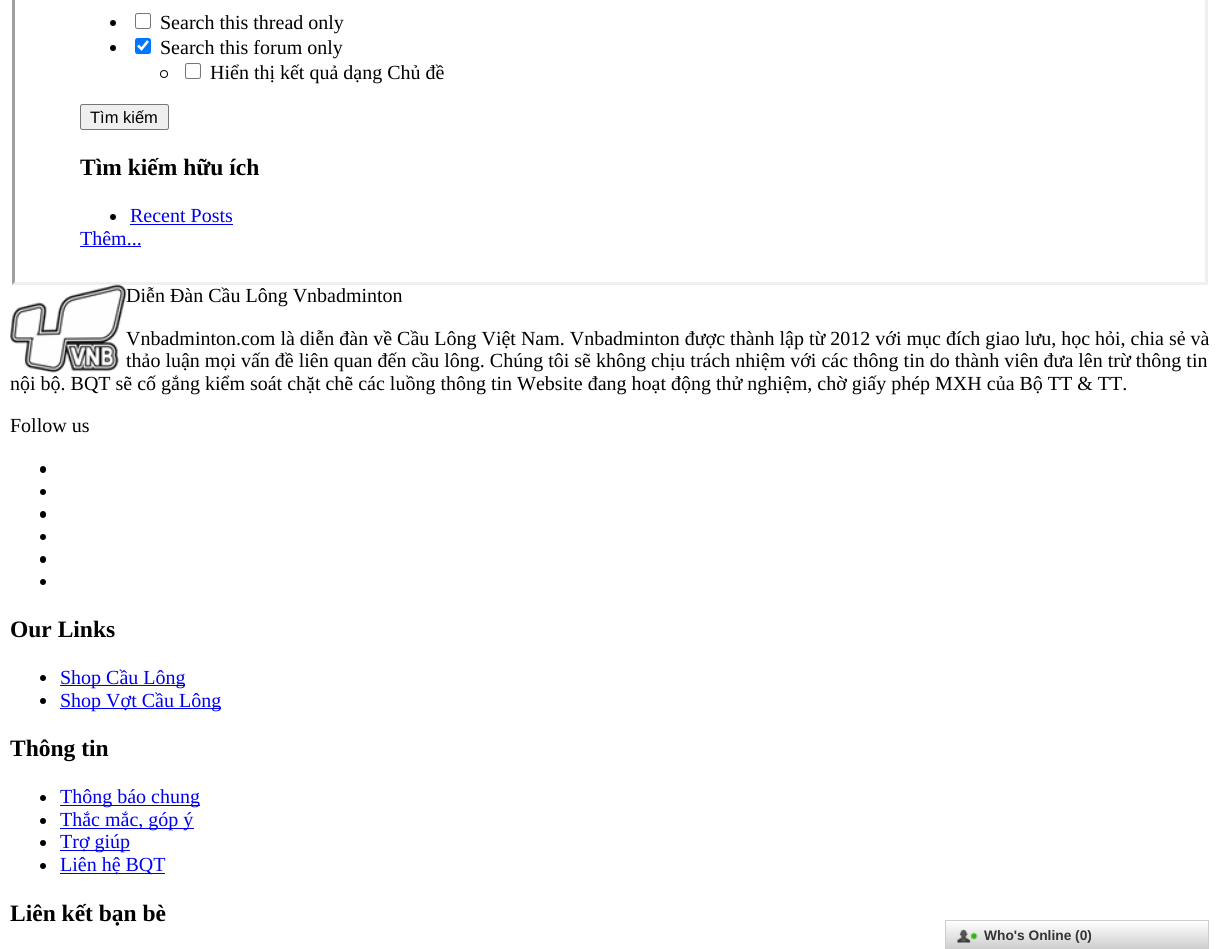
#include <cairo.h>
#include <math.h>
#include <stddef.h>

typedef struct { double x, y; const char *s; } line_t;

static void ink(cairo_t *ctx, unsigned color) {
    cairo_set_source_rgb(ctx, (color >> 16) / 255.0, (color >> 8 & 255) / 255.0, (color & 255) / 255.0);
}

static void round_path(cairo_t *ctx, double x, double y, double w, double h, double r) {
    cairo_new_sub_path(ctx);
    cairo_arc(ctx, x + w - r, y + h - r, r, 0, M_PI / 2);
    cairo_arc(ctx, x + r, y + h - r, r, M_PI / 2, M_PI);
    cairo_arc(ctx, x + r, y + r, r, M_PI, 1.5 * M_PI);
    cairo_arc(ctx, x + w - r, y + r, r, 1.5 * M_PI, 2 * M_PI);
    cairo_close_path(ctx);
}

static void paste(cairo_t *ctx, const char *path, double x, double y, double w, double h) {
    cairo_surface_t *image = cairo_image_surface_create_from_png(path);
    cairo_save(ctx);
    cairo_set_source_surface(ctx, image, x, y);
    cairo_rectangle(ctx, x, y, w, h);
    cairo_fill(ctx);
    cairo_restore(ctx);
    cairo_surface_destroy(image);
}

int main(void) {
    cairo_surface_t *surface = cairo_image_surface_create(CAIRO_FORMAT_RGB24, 1220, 949);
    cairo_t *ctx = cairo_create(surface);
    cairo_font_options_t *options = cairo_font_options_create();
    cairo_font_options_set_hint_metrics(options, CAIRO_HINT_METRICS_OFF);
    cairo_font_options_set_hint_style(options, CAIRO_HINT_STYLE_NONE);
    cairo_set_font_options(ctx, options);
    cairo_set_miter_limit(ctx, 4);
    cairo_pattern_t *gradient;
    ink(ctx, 0xFFFFFF);
    cairo_paint(ctx);
    ink(ctx, 0xEFEFEF);
    cairo_new_path(ctx);
    cairo_move_to(ctx, 1208, -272);
    cairo_line_to(ctx, 1208, 285);
    cairo_line_to(ctx, 1205, 282);
    cairo_line_to(ctx, 1205, -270);
    cairo_close_path(ctx);
    cairo_fill(ctx);
    cairo_new_path(ctx);
    cairo_move_to(ctx, 1208, 285);
    cairo_line_to(ctx, 12, 285);
    cairo_line_to(ctx, 15, 282);
    cairo_line_to(ctx, 1205, 282);
    cairo_close_path(ctx);
    cairo_fill(ctx);
    ink(ctx, 0x9F9F9F);
    cairo_new_path(ctx);
    cairo_move_to(ctx, 12, 285);
    cairo_line_to(ctx, 12, -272);
    cairo_line_to(ctx, 15, -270);
    cairo_line_to(ctx, 15, 282);
    cairo_close_path(ctx);
    cairo_fill(ctx);
    ink(ctx, 0x000000);
    cairo_arc(ctx, 113, 23, 3, 0, 2 * M_PI);
    cairo_fill(ctx);
    round_path(ctx, 135.5, 13.5, 15, 15, 2);
    ink(ctx, 0x767676);
    cairo_set_line_width(ctx, 1);
    cairo_stroke(ctx);
    cairo_select_font_face(ctx, "Liberation Serif", CAIRO_FONT_SLANT_NORMAL, CAIRO_FONT_WEIGHT_NORMAL);
    cairo_set_font_size(ctx, 20);
    ink(ctx, 0x000000);
    cairo_move_to(ctx, 160, 29);
    cairo_show_text(ctx, "Search this thread only");
    cairo_new_path(ctx);
    cairo_arc(ctx, 113, 48, 3, 0, 2 * M_PI);
    cairo_fill(ctx);
    ink(ctx, 0x0075FF);
    round_path(ctx, 135, 38, 16, 16, 2.5);
    cairo_fill(ctx);
    cairo_new_path(ctx);
    cairo_move_to(ctx, 138, 45.5);
    cairo_line_to(ctx, 141.5, 49);
    cairo_line_to(ctx, 148, 41);
    ink(ctx, 0xFFFFFF);
    cairo_set_line_width(ctx, 2.6);
    cairo_stroke(ctx);
    ink(ctx, 0x000000);
    cairo_move_to(ctx, 160, 54);
    cairo_show_text(ctx, "Search this forum only");
    cairo_new_path(ctx);
    cairo_arc(ctx, 164, 74, 3.5, 0, 2 * M_PI);
    cairo_set_line_width(ctx, 1);
    cairo_stroke(ctx);
    round_path(ctx, 185.5, 63.5, 15, 15, 2);
    ink(ctx, 0x767676);
    cairo_stroke(ctx);
    ink(ctx, 0x000000);
    cairo_move_to(ctx, 210, 79);
    cairo_show_text(ctx, "Hiển thị kết quả dạng Chủ đề");
    ink(ctx, 0xEFEFEF);
    round_path(ctx, 80.5, 104.5, 88, 25, 2);
    cairo_fill_preserve(ctx);
    ink(ctx, 0x767676);
    cairo_stroke(ctx);
    cairo_select_font_face(ctx, "Liberation Sans", CAIRO_FONT_SLANT_NORMAL, CAIRO_FONT_WEIGHT_NORMAL);
    cairo_set_font_size(ctx, 16.5);
    ink(ctx, 0x000000);
    cairo_move_to(ctx, 90, 123);
    cairo_show_text(ctx, "Tìm kiếm");
    cairo_select_font_face(ctx, "Liberation Serif", CAIRO_FONT_SLANT_NORMAL, CAIRO_FONT_WEIGHT_BOLD);
    cairo_set_font_size(ctx, 23.5);
    cairo_move_to(ctx, 80, 175);
    cairo_show_text(ctx, "Tìm kiếm hữu ích");
    cairo_new_path(ctx);
    cairo_arc(ctx, 113, 217, 3, 0, 2 * M_PI);
    cairo_fill(ctx);
    cairo_select_font_face(ctx, "Liberation Serif", CAIRO_FONT_SLANT_NORMAL, CAIRO_FONT_WEIGHT_NORMAL);
    cairo_set_font_size(ctx, 20);
    ink(ctx, 0x0000EE);
    cairo_move_to(ctx, 130, 222);
    cairo_show_text(ctx, "Recent Posts");
    cairo_rectangle(ctx, 130, 224, 103, 1);
    cairo_fill(ctx);
    cairo_move_to(ctx, 80, 245);
    cairo_show_text(ctx, "Thêm...");
    cairo_rectangle(ctx, 80, 246, 61, 1);
    cairo_fill(ctx);
    paste(ctx, "media/1.png", 10, 284, 117, 89);
    ink(ctx, 0x000000);
    {
        static const line_t items[] = {
            {126, 302, "Diễn Đàn Cầu Lông Vnbadminton"},
            {126, 345, "Vnbadminton.com là diễn đàn về Cầu Lông Việt Nam. Vnbadminton được thành lập từ 2012 với mục đích giao lưu, học hỏi, chia sẻ và"},
            {126, 367, "thảo luận mọi vấn đề liên quan đến cầu lông. Chúng tôi sẽ không chịu trách nhiệm với các thông tin do thành viên đưa lên trừ thông tin"},
            {10, 390, "nội bộ. BQT sẽ cố gắng kiểm soát chặt chẽ các luồng thông tin Website đang hoạt động thử nghiệm, chờ giấy phép MXH của Bộ TT & TT."},
            {10, 432, "Follow us"},
        };
        for (size_t i = 0; i < sizeof items / sizeof *items; i++) {
            cairo_move_to(ctx, items[i].x, items[i].y);
            cairo_show_text(ctx, items[i].s);
        }
    }
    round_path(ctx, 40, 466, 6, 7, 3);
    cairo_fill(ctx);
    cairo_arc(ctx, 43, 492, 3, 0, 2 * M_PI);
    cairo_fill(ctx);
    round_path(ctx, 40, 511, 6, 7, 3);
    cairo_fill(ctx);
    cairo_arc(ctx, 43, 537, 3, 0, 2 * M_PI);
    cairo_fill(ctx);
    round_path(ctx, 40, 556, 6, 7, 3);
    cairo_fill(ctx);
    cairo_arc(ctx, 43, 582, 3, 0, 2 * M_PI);
    cairo_fill(ctx);
    cairo_select_font_face(ctx, "Liberation Serif", CAIRO_FONT_SLANT_NORMAL, CAIRO_FONT_WEIGHT_BOLD);
    cairo_set_font_size(ctx, 23.5);
    cairo_move_to(ctx, 10, 637);
    cairo_show_text(ctx, "Our Links");
    cairo_new_path(ctx);
    cairo_arc(ctx, 43, 678, 3, 0, 2 * M_PI);
    cairo_fill(ctx);
    ink(ctx, 0x0000EE);
    cairo_rectangle(ctx, 60, 685, 125, 1);
    cairo_fill(ctx);
    cairo_select_font_face(ctx, "Liberation Serif", CAIRO_FONT_SLANT_NORMAL, CAIRO_FONT_WEIGHT_NORMAL);
    cairo_set_font_size(ctx, 20);
    cairo_move_to(ctx, 60, 684);
    cairo_show_text(ctx, "Shop Cầu Lông");
    ink(ctx, 0x000000);
    cairo_new_path(ctx);
    cairo_arc(ctx, 43, 701, 3, 0, 2 * M_PI);
    cairo_fill(ctx);
    ink(ctx, 0x0000EE);
    cairo_rectangle(ctx, 60, 708, 161, 1);
    cairo_fill(ctx);
    cairo_move_to(ctx, 60, 707);
    cairo_show_text(ctx, "Shop Vợt Cầu Lông");
    cairo_select_font_face(ctx, "Liberation Serif", CAIRO_FONT_SLANT_NORMAL, CAIRO_FONT_WEIGHT_BOLD);
    cairo_set_font_size(ctx, 23.5);
    ink(ctx, 0x000000);
    cairo_move_to(ctx, 10, 756);
    cairo_show_text(ctx, "Thông tin");
    cairo_new_path(ctx);
    cairo_arc(ctx, 43, 798, 3, 0, 2 * M_PI);
    cairo_fill(ctx);
    ink(ctx, 0x0000EE);
    cairo_rectangle(ctx, 60, 805, 140, 1);
    cairo_fill(ctx);
    cairo_select_font_face(ctx, "Liberation Serif", CAIRO_FONT_SLANT_NORMAL, CAIRO_FONT_WEIGHT_NORMAL);
    cairo_set_font_size(ctx, 20);
    cairo_move_to(ctx, 60, 803);
    cairo_show_text(ctx, "Thông báo chung");
    ink(ctx, 0x000000);
    cairo_new_path(ctx);
    cairo_arc(ctx, 43, 821, 3, 0, 2 * M_PI);
    cairo_fill(ctx);
    ink(ctx, 0x0000EE);
    cairo_rectangle(ctx, 60, 828, 134, 1);
    cairo_fill(ctx);
    cairo_move_to(ctx, 60, 826);
    cairo_show_text(ctx, "Thắc mắc, góp ý");
    ink(ctx, 0x000000);
    cairo_new_path(ctx);
    cairo_arc(ctx, 43, 843, 3, 0, 2 * M_PI);
    cairo_fill(ctx);
    ink(ctx, 0x0000EE);
    cairo_rectangle(ctx, 60, 850, 70, 1);
    cairo_fill(ctx);
    cairo_move_to(ctx, 60, 848);
    cairo_show_text(ctx, "Trợ giúp");
    ink(ctx, 0x000000);
    cairo_new_path(ctx);
    cairo_arc(ctx, 43, 866, 3, 0, 2 * M_PI);
    cairo_fill(ctx);
    ink(ctx, 0x0000EE);
    cairo_rectangle(ctx, 60, 873, 105, 1);
    cairo_fill(ctx);
    cairo_move_to(ctx, 60, 871);
    cairo_show_text(ctx, "Liên hệ BQT");
    cairo_select_font_face(ctx, "Liberation Serif", CAIRO_FONT_SLANT_NORMAL, CAIRO_FONT_WEIGHT_BOLD);
    cairo_set_font_size(ctx, 23.5);
    ink(ctx, 0x000000);
    cairo_move_to(ctx, 10, 921);
    cairo_show_text(ctx, "Liên kết bạn bè");
    gradient = cairo_pattern_create_linear(946, 893, 946, 921);
    cairo_pattern_add_color_stop_rgba(gradient, 0, 1, 1, 1, 1);
    cairo_pattern_add_color_stop_rgba(gradient, 1, 0.8, 0.8, 0.8, 1);
    cairo_set_source(ctx, gradient);
    cairo_pattern_destroy(gradient);
    cairo_rectangle(ctx, 945, 920, 264, 1);
    cairo_fill(ctx);
    gradient = cairo_pattern_create_linear(946, 921, 946, 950);
    cairo_pattern_add_color_stop_rgba(gradient, 0, 1, 1, 1, 1);
    cairo_pattern_add_color_stop_rgba(gradient, 1, 0.8, 0.8, 0.8, 1);
    cairo_set_source(ctx, gradient);
    cairo_pattern_destroy(gradient);
    cairo_rectangle(ctx, 946, 922, 262, 27);
    cairo_fill(ctx);
    ink(ctx, 0xCCCCCC);
    cairo_rectangle(ctx, 1208, 920, 1, 29);
    cairo_fill(ctx);
    cairo_rectangle(ctx, 945, 920, 1, 29);
    cairo_fill(ctx);
    paste(ctx, "media/2.png", 957, 929, 21, 14);
    cairo_select_font_face(ctx, "Liberation Sans", CAIRO_FONT_SLANT_NORMAL, CAIRO_FONT_WEIGHT_BOLD);
    cairo_set_font_size(ctx, 13.75);
    ink(ctx, 0x333333);
    cairo_move_to(ctx, 984, 940);
    cairo_show_text(ctx, "Who's Online (0)");
    cairo_surface_write_to_png(surface, "image.png");
    cairo_font_options_destroy(options);
    cairo_destroy(ctx);
    cairo_surface_destroy(surface);
    return 0;
}
